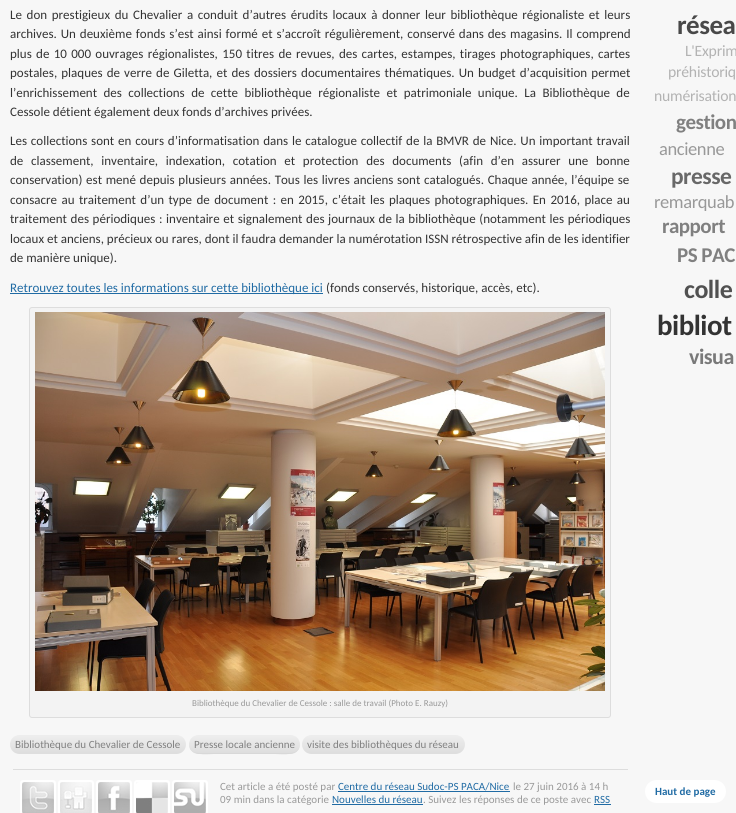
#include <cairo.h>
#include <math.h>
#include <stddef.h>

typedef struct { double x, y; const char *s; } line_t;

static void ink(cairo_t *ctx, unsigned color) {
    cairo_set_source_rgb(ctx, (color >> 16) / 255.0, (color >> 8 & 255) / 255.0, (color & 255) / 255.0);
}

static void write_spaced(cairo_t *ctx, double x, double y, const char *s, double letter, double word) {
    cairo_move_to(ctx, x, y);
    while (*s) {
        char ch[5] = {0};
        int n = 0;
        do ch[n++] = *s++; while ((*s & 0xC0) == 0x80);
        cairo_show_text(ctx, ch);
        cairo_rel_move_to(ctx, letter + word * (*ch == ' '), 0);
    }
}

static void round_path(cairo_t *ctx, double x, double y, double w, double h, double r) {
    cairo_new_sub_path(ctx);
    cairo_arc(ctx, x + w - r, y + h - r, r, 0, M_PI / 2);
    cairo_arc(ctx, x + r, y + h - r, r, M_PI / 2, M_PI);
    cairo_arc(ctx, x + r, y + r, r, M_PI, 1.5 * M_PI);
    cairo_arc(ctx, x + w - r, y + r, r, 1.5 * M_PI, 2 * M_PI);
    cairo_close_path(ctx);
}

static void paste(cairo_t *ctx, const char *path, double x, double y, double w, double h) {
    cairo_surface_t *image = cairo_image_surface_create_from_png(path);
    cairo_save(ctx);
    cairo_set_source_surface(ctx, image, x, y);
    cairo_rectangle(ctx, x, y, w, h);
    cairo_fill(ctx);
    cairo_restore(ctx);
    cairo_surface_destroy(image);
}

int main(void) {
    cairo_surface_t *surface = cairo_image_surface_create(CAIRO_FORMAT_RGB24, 736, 813);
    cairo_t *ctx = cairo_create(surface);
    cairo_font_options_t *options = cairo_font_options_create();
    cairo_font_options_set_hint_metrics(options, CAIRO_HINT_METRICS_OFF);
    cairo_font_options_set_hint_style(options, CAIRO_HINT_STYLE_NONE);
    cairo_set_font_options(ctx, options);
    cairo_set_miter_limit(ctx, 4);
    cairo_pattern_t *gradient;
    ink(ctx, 0xF7F7F7);
    cairo_paint(ctx);
    cairo_select_font_face(ctx, "Carlito", CAIRO_FONT_SLANT_NORMAL, CAIRO_FONT_WEIGHT_NORMAL);
    cairo_set_font_size(ctx, 13);
    ink(ctx, 0x333333);
    write_spaced(ctx, 10, 19, "Le don prestigieux du Chevalier a conduit d’autres érudits locaux à donner leur bibliothèque régionaliste et leurs", 0, 1.7);
    write_spaced(ctx, 10, 38, "archives. Un deuxième fonds s’est ainsi formé et s’accroît régulièrement, conservé dans des magasins. Il comprend", 0, 1);
    write_spaced(ctx, 10, 58, "plus de 10 000 ouvrages régionalistes, 150 titres de revues, des cartes, estampes, tirages photographiques, cartes", 0, 1.4);
    write_spaced(ctx, 10, 77, "postales, plaques de verre de Giletta, et des dossiers documentaires thématiques. Un budget d’acquisition permet", 0, 1.2);
    write_spaced(ctx, 10, 97, "l’enrichissement des collections de cette bibliothèque régionaliste et patrimoniale unique. La Bibliothèque de", 0, 3.5);
    cairo_move_to(ctx, 10, 116);
    cairo_show_text(ctx, "Cessole détient également deux fonds d’archives privées.");
    write_spaced(ctx, 10, 145, "Les collections sont en cours d’informatisation dans le catalogue collectif de la BMVR de Nice. Un important travail", 0, 0.9);
    write_spaced(ctx, 10, 165, "de classement, inventaire, indexation, cotation et protection des documents (afin d’en assurer une bonne", 0, 4.75);
    write_spaced(ctx, 10, 184, "conservation) est mené depuis plusieurs années. Tous les livres anciens sont catalogués. Chaque année, l’équipe se", 0, 0.8);
    write_spaced(ctx, 10, 204, "consacre au traitement d’un type de document : en 2015, c’était les plaques photographiques. En 2016, place au", 0, 1.5);
    write_spaced(ctx, 10, 223, "traitement des périodiques : inventaire et signalement des journaux de la bibliothèque (notamment les périodiques", 0, 0.7);
    cairo_move_to(ctx, 10, 243);
    cairo_show_text(ctx, "locaux et anciens, précieux ou rares, dont il faudra demander la numérotation ISSN rétrospective afin de les identifier");
    cairo_move_to(ctx, 10, 262);
    cairo_show_text(ctx, "de manière unique).");
    ink(ctx, 0x206BA4);
    cairo_rectangle(ctx, 10, 293, 313, 1);
    cairo_fill(ctx);
    cairo_move_to(ctx, 10, 292);
    cairo_show_text(ctx, "Retrouvez toutes les informations sur cette bibliothèque ici");
    ink(ctx, 0x333333);
    cairo_move_to(ctx, 326, 292);
    cairo_show_text(ctx, "(fonds conservés, historique, accès, etc).");
    ink(ctx, 0xF3F3F3);
    round_path(ctx, 29.5, 307.5, 581, 410, 2.5);
    cairo_fill_preserve(ctx);
    ink(ctx, 0xDDDDDD);
    cairo_set_line_width(ctx, 1);
    cairo_stroke(ctx);
    paste(ctx, "media/1.png", 35, 312, 570, 379);
    cairo_set_font_size(ctx, 9);
    ink(ctx, 0x999999);
    cairo_move_to(ctx, 192, 706);
    cairo_show_text(ctx, "Bibliothèque du Chevalier de Cessole : salle de travail (Photo E. Rauzy)");
    gradient = cairo_pattern_create_linear(98, 735, 98, 754);
    cairo_pattern_add_color_stop_rgba(gradient, 0, 0.933, 0.933, 0.933, 1);
    cairo_pattern_add_color_stop_rgba(gradient, 1, 0.867, 0.867, 0.867, 1);
    cairo_set_source(ctx, gradient);
    cairo_pattern_destroy(gradient);
    round_path(ctx, 10, 735, 176, 19, 9.5);
    cairo_fill(ctx);
    cairo_set_font_size(ctx, 11);
    ink(ctx, 0x808080);
    cairo_move_to(ctx, 15, 748);
    cairo_show_text(ctx, "Bibliothèque du Chevalier de Cessole");
    gradient = cairo_pattern_create_linear(245, 735, 245, 754);
    cairo_pattern_add_color_stop_rgba(gradient, 0, 0.933, 0.933, 0.933, 1);
    cairo_pattern_add_color_stop_rgba(gradient, 1, 0.867, 0.867, 0.867, 1);
    cairo_set_source(ctx, gradient);
    cairo_pattern_destroy(gradient);
    round_path(ctx, 189, 735, 111, 19, 9.5);
    cairo_fill(ctx);
    ink(ctx, 0xD8D8D8);
    cairo_new_path(ctx);
    cairo_move_to(ctx, 189, 744);
    cairo_curve_to(ctx, 189, 757, 207, 754, 214, 754);
    cairo_line_to(ctx, 275, 754);
    cairo_curve_to(ctx, 282, 754, 300, 757, 300, 744);
    cairo_curve_to(ctx, 300, 749, 296, 753, 290, 753);
    cairo_line_to(ctx, 198, 753);
    cairo_curve_to(ctx, 193, 753, 189, 749, 189, 744);
    cairo_close_path(ctx);
    cairo_fill(ctx);
    ink(ctx, 0x808080);
    cairo_move_to(ctx, 194, 748);
    cairo_show_text(ctx, "Presse locale ancienne");
    gradient = cairo_pattern_create_linear(384, 735, 384, 754);
    cairo_pattern_add_color_stop_rgba(gradient, 0, 0.933, 0.933, 0.933, 1);
    cairo_pattern_add_color_stop_rgba(gradient, 1, 0.867, 0.867, 0.867, 1);
    cairo_set_source(ctx, gradient);
    cairo_pattern_destroy(gradient);
    round_path(ctx, 302, 735, 163, 19, 9.5);
    cairo_fill(ctx);
    ink(ctx, 0x808080);
    cairo_move_to(ctx, 307, 748);
    cairo_show_text(ctx, "visite des bibliothèques du réseau");
    ink(ctx, 0xDDDDDD);
    cairo_rectangle(ctx, 13, 769, 615, 1);
    cairo_fill(ctx);
    round_path(ctx, 21, 781, 34, 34, 2);
    ink(ctx, 0xFFFFFF);
    cairo_set_line_width(ctx, 2);
    cairo_stroke(ctx);
    paste(ctx, "media/2.png", 22, 782, 32, 31);
    round_path(ctx, 59, 781, 34, 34, 2);
    cairo_stroke(ctx);
    paste(ctx, "media/3.png", 60, 782, 32, 31);
    round_path(ctx, 97, 781, 34, 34, 2);
    cairo_stroke(ctx);
    paste(ctx, "media/4.png", 98, 782, 32, 31);
    round_path(ctx, 135, 781, 34, 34, 2);
    cairo_stroke(ctx);
    paste(ctx, "media/5.png", 136, 782, 32, 31);
    round_path(ctx, 173, 781, 34, 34, 2);
    cairo_stroke(ctx);
    paste(ctx, "media/6.png", 174, 782, 32, 31);
    ink(ctx, 0x999999);
    cairo_move_to(ctx, 220, 790);
    cairo_show_text(ctx, "Cet article a été posté par");
    ink(ctx, 0x206BA4);
    cairo_move_to(ctx, 338, 790);
    cairo_show_text(ctx, "Centre du réseau Sudoc-PS PACA/Nice");
    cairo_rectangle(ctx, 338, 791, 172, 1);
    cairo_fill(ctx);
    ink(ctx, 0x999999);
    cairo_move_to(ctx, 513, 790);
    cairo_show_text(ctx, "le 27 juin 2016 à 14 h");
    cairo_move_to(ctx, 220, 803);
    cairo_show_text(ctx, "09 min dans la catégorie");
    ink(ctx, 0x206BA4);
    cairo_move_to(ctx, 332, 803);
    cairo_show_text(ctx, "Nouvelles du réseau");
    cairo_rectangle(ctx, 332, 804, 91, 1);
    cairo_fill(ctx);
    ink(ctx, 0x999999);
    cairo_move_to(ctx, 423, 803);
    cairo_show_text(ctx, ". Suivez les réponses de ce poste avec");
    ink(ctx, 0x206BA4);
    cairo_move_to(ctx, 594, 803);
    cairo_show_text(ctx, "RSS");
    cairo_rectangle(ctx, 594, 804, 17, 1);
    cairo_fill(ctx);
    cairo_select_font_face(ctx, "Carlito", CAIRO_FONT_SLANT_NORMAL, CAIRO_FONT_WEIGHT_BOLD);
    cairo_set_font_size(ctx, 27);
    ink(ctx, 0x484848);
    write_spaced(ctx, 677, 34, "résea", -0.5, 0);
    cairo_select_font_face(ctx, "Carlito", CAIRO_FONT_SLANT_NORMAL, CAIRO_FONT_WEIGHT_NORMAL);
    cairo_set_font_size(ctx, 15.75);
    ink(ctx, 0xB3B3B3);
    {
        static const line_t items[] = {
            {685, 56, "L'Exprim"},
            {668, 77, "préhistoriq"},
            {654, 101, "numérisation"},
        };
        for (size_t i = 0; i < sizeof items / sizeof *items; i++) {
            write_spaced(ctx, items[i].x, items[i].y, items[i].s, -0.25, 0);
        }
    }
    cairo_select_font_face(ctx, "Carlito", CAIRO_FONT_SLANT_NORMAL, CAIRO_FONT_WEIGHT_BOLD);
    cairo_set_font_size(ctx, 21);
    ink(ctx, 0x808080);
    write_spaced(ctx, 676, 129, "gestion", -0.5, 0);
    cairo_select_font_face(ctx, "Carlito", CAIRO_FONT_SLANT_NORMAL, CAIRO_FONT_WEIGHT_NORMAL);
    cairo_set_font_size(ctx, 18.5);
    ink(ctx, 0x999999);
    write_spaced(ctx, 659, 155, "ancienne", -0.4, 0);
    cairo_select_font_face(ctx, "Carlito", CAIRO_FONT_SLANT_NORMAL, CAIRO_FONT_WEIGHT_BOLD);
    cairo_set_font_size(ctx, 23.5);
    ink(ctx, 0x686868);
    write_spaced(ctx, 671, 184, "presse", -0.5, 0);
    cairo_select_font_face(ctx, "Carlito", CAIRO_FONT_SLANT_NORMAL, CAIRO_FONT_WEIGHT_NORMAL);
    cairo_set_font_size(ctx, 18.5);
    ink(ctx, 0x999999);
    write_spaced(ctx, 654, 208, "remarquab", -0.4, 0);
    cairo_select_font_face(ctx, "Carlito", CAIRO_FONT_SLANT_NORMAL, CAIRO_FONT_WEIGHT_BOLD);
    cairo_set_font_size(ctx, 21);
    ink(ctx, 0x808080);
    write_spaced(ctx, 662, 233, "rapport", -0.5, 0);
    write_spaced(ctx, 677, 262, "PS PAC", -0.5, 0);
    cairo_set_font_size(ctx, 26);
    ink(ctx, 0x515151);
    write_spaced(ctx, 684, 298, "colle", -0.5, 0);
    cairo_set_font_size(ctx, 29);
    ink(ctx, 0x333333);
    write_spaced(ctx, 657, 335, "bibliot", -0.5, 0);
    cairo_set_font_size(ctx, 22);
    ink(ctx, 0x797979);
    write_spaced(ctx, 689, 364, "visua", -0.5, 0);
    ink(ctx, 0xFFFFFF);
    round_path(ctx, 645, 780, 81, 23, 11.5);
    cairo_fill(ctx);
    cairo_set_font_size(ctx, 11);
    ink(ctx, 0x206BA4);
    cairo_move_to(ctx, 655, 795);
    cairo_show_text(ctx, "Haut de page");
    cairo_surface_write_to_png(surface, "image.png");
    cairo_font_options_destroy(options);
    cairo_destroy(ctx);
    cairo_surface_destroy(surface);
    return 0;
}
